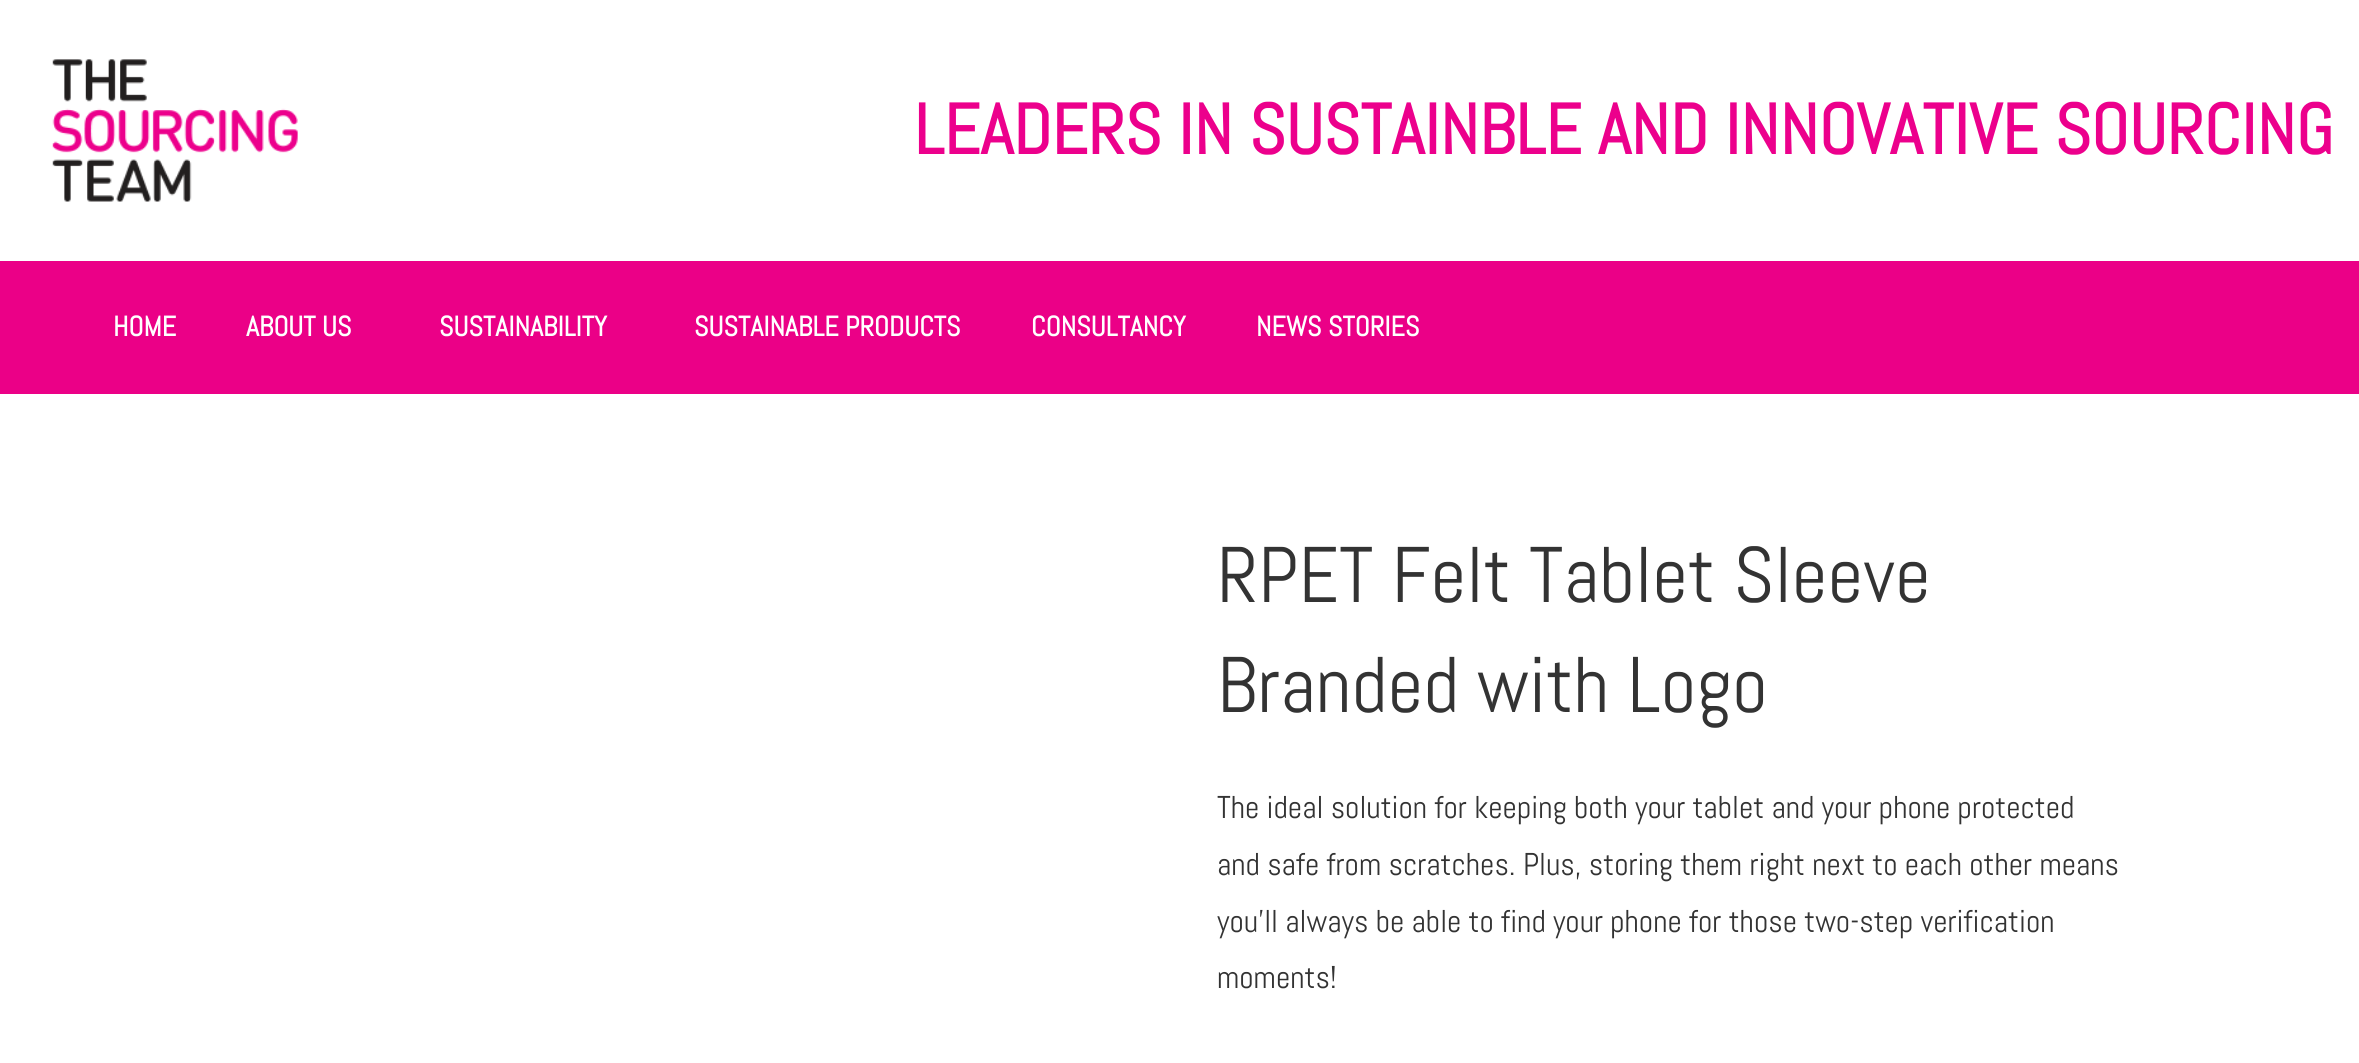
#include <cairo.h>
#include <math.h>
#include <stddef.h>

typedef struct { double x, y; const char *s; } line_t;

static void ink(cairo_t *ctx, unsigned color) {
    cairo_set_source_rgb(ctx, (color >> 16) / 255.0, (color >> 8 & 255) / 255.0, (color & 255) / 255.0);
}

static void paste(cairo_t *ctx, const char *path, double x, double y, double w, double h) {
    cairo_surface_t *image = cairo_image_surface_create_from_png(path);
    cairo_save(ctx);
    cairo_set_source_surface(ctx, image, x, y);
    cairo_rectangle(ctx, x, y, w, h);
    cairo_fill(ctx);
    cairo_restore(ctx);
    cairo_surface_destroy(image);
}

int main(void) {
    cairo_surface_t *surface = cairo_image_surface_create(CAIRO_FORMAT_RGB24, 2359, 1063);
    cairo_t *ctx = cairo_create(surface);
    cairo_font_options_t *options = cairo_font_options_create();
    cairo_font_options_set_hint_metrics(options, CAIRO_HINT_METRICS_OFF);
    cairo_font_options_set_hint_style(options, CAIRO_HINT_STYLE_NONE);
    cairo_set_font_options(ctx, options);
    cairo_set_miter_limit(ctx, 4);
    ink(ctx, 0xFFFFFF);
    cairo_paint(ctx);
    paste(ctx, "media/1.png", 52, 59, 246, 143);
    cairo_select_font_face(ctx, "Abel", CAIRO_FONT_SLANT_NORMAL, CAIRO_FONT_WEIGHT_BOLD);
    cairo_set_font_size(ctx, 70.75);
    ink(ctx, 0xEC008C);
    cairo_move_to(ctx, 914, 154);
    cairo_show_text(ctx, "LEADERS IN SUSTAINBLE AND INNOVATIVE SOURCING");
    ink(ctx, 0xEB0087);
    cairo_rectangle(ctx, 0, 261, 2359, 133);
    cairo_fill(ctx);
    cairo_set_font_size(ctx, 28);
    ink(ctx, 0xFFFFFF);
    {
        static const line_t items[] = {
            {113, 336, "HOME"},
            {246, 336, "ABOUT US"},
            {439, 336, "SUSTAINABILITY"},
            {694, 336, "SUSTAINABLE PRODUCTS"},
            {1031, 336, "CONSULTANCY"},
            {1256, 336, "NEWS STORIES"},
        };
        for (size_t i = 0; i < sizeof items / sizeof *items; i++) {
            cairo_move_to(ctx, items[i].x, items[i].y);
            cairo_show_text(ctx, items[i].s);
        }
    }
    cairo_select_font_face(ctx, "Abel", CAIRO_FONT_SLANT_NORMAL, CAIRO_FONT_WEIGHT_NORMAL);
    cairo_set_font_size(ctx, 78.75);
    ink(ctx, 0x333333);
    cairo_move_to(ctx, 1217, 602);
    cairo_show_text(ctx, "RPET Felt Tablet Sleeve");
    cairo_move_to(ctx, 1217, 712);
    cairo_show_text(ctx, "Branded with Logo");
    cairo_set_font_size(ctx, 31.5);
    {
        static const line_t items[] = {
            {1217, 818, "The ideal solution for keeping both your tablet and your phone protected"},
            {1217, 875, "and safe from scratches. Plus, storing them right next to each other means"},
            {1217, 932, "you’ll always be able to find your phone for those two-step verification"},
            {1217, 988, "moments!"},
        };
        for (size_t i = 0; i < sizeof items / sizeof *items; i++) {
            cairo_move_to(ctx, items[i].x, items[i].y);
            cairo_show_text(ctx, items[i].s);
        }
    }
    cairo_surface_write_to_png(surface, "image.png");
    cairo_font_options_destroy(options);
    cairo_destroy(ctx);
    cairo_surface_destroy(surface);
    return 0;
}
